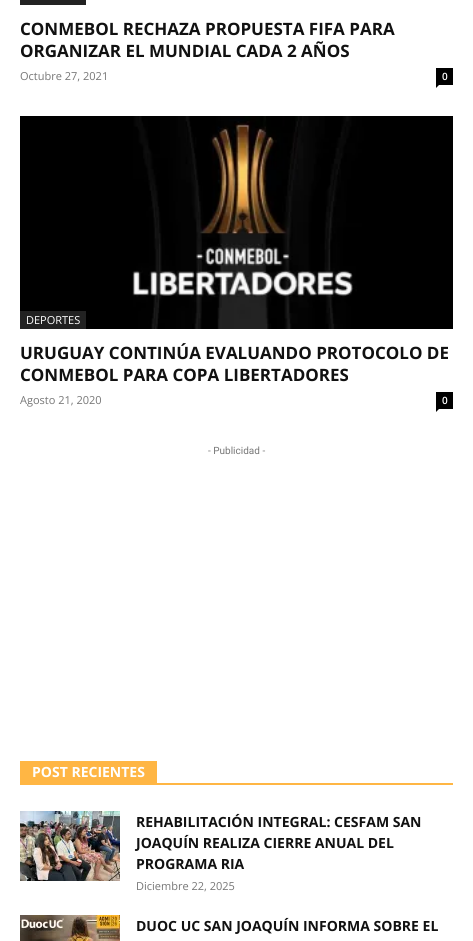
#include <cairo.h>
#include <math.h>
#include <stddef.h>

typedef struct { double x, y; const char *s; } line_t;

static void ink(cairo_t *ctx, unsigned color) {
    cairo_set_source_rgb(ctx, (color >> 16) / 255.0, (color >> 8 & 255) / 255.0, (color & 255) / 255.0);
}

static void paste(cairo_t *ctx, const char *path, double x, double y, double w, double h) {
    cairo_surface_t *image = cairo_image_surface_create_from_png(path);
    cairo_save(ctx);
    cairo_set_source_surface(ctx, image, x, y);
    cairo_rectangle(ctx, x, y, w, h);
    cairo_fill(ctx);
    cairo_restore(ctx);
    cairo_surface_destroy(image);
}

int main(void) {
    cairo_surface_t *surface = cairo_image_surface_create(CAIRO_FORMAT_RGB24, 473, 941);
    cairo_t *ctx = cairo_create(surface);
    cairo_font_options_t *options = cairo_font_options_create();
    cairo_font_options_set_hint_metrics(options, CAIRO_HINT_METRICS_OFF);
    cairo_font_options_set_hint_style(options, CAIRO_HINT_STYLE_NONE);
    cairo_set_font_options(ctx, options);
    cairo_set_miter_limit(ctx, 4);
    ink(ctx, 0xFFFFFF);
    cairo_paint(ctx);
    ink(ctx, 0x222222);
    cairo_rectangle(ctx, 20, 0, 66, 5);
    cairo_fill(ctx);
    cairo_select_font_face(ctx, "Open Sans", CAIRO_FONT_SLANT_NORMAL, CAIRO_FONT_WEIGHT_BOLD);
    cairo_set_font_size(ctx, 17);
    ink(ctx, 0x111111);
    cairo_move_to(ctx, 20, 35);
    cairo_show_text(ctx, "CONMEBOL RECHAZA PROPUESTA FIFA PARA");
    cairo_move_to(ctx, 20, 57);
    cairo_show_text(ctx, "ORGANIZAR EL MUNDIAL CADA 2 AÑOS");
    cairo_select_font_face(ctx, "Open Sans", CAIRO_FONT_SLANT_NORMAL, CAIRO_FONT_WEIGHT_NORMAL);
    cairo_set_font_size(ctx, 11);
    ink(ctx, 0x767676);
    cairo_move_to(ctx, 20, 80);
    cairo_show_text(ctx, "Octubre 27, 2021");
    ink(ctx, 0x000000);
    cairo_rectangle(ctx, 436, 68, 17, 17);
    cairo_fill(ctx);
    cairo_select_font_face(ctx, "Open Sans SemiBold", CAIRO_FONT_SLANT_NORMAL, CAIRO_FONT_WEIGHT_NORMAL);
    cairo_set_font_size(ctx, 10);
    ink(ctx, 0xFFFFFF);
    cairo_move_to(ctx, 442, 80);
    cairo_show_text(ctx, "0");
    ink(ctx, 0x000000);
    cairo_new_path(ctx);
    cairo_move_to(ctx, 436, 85);
    cairo_line_to(ctx, 439, 85);
    cairo_line_to(ctx, 436, 88);
    cairo_close_path(ctx);
    cairo_fill(ctx);
    paste(ctx, "media/1.png", 20, 116, 433, 213);
    ink(ctx, 0x222222);
    cairo_rectangle(ctx, 20, 311, 66, 18);
    cairo_fill(ctx);
    cairo_select_font_face(ctx, "Open Sans", CAIRO_FONT_SLANT_NORMAL, CAIRO_FONT_WEIGHT_NORMAL);
    cairo_set_font_size(ctx, 11);
    ink(ctx, 0xFFFFFF);
    cairo_move_to(ctx, 26, 324);
    cairo_show_text(ctx, "DEPORTES");
    cairo_select_font_face(ctx, "Open Sans", CAIRO_FONT_SLANT_NORMAL, CAIRO_FONT_WEIGHT_BOLD);
    cairo_set_font_size(ctx, 17);
    ink(ctx, 0x111111);
    cairo_move_to(ctx, 20, 359);
    cairo_show_text(ctx, "URUGUAY CONTINÚA EVALUANDO PROTOCOLO DE");
    cairo_move_to(ctx, 20, 381);
    cairo_show_text(ctx, "CONMEBOL PARA COPA LIBERTADORES");
    cairo_select_font_face(ctx, "Open Sans", CAIRO_FONT_SLANT_NORMAL, CAIRO_FONT_WEIGHT_NORMAL);
    cairo_set_font_size(ctx, 11);
    ink(ctx, 0x767676);
    cairo_move_to(ctx, 20, 404);
    cairo_show_text(ctx, "Agosto 21, 2020");
    ink(ctx, 0x000000);
    cairo_rectangle(ctx, 436, 392, 17, 17);
    cairo_fill(ctx);
    cairo_select_font_face(ctx, "Open Sans SemiBold", CAIRO_FONT_SLANT_NORMAL, CAIRO_FONT_WEIGHT_NORMAL);
    cairo_set_font_size(ctx, 10);
    ink(ctx, 0xFFFFFF);
    cairo_move_to(ctx, 442, 404);
    cairo_show_text(ctx, "0");
    ink(ctx, 0x000000);
    cairo_new_path(ctx);
    cairo_move_to(ctx, 436, 409);
    cairo_line_to(ctx, 439, 409);
    cairo_line_to(ctx, 436, 412);
    cairo_close_path(ctx);
    cairo_fill(ctx);
    cairo_select_font_face(ctx, "Roboto", CAIRO_FONT_SLANT_NORMAL, CAIRO_FONT_WEIGHT_NORMAL);
    ink(ctx, 0x767676);
    cairo_move_to(ctx, 208, 454);
    cairo_show_text(ctx, "- Publicidad -");
    ink(ctx, 0xFFB644);
    cairo_rectangle(ctx, 20, 783, 433, 2);
    cairo_fill(ctx);
    cairo_rectangle(ctx, 20, 761, 137, 22);
    cairo_fill(ctx);
    cairo_select_font_face(ctx, "Open Sans", CAIRO_FONT_SLANT_NORMAL, CAIRO_FONT_WEIGHT_BOLD);
    cairo_set_font_size(ctx, 14);
    ink(ctx, 0xFFFFFF);
    cairo_move_to(ctx, 32, 777);
    cairo_show_text(ctx, "POST RECIENTES");
    paste(ctx, "media/2.png", 20, 811, 100, 70);
    ink(ctx, 0x111111);
    {
        static const line_t items[] = {
            {136, 827, "REHABILITACIÓN INTEGRAL: CESFAM SAN"},
            {136, 848, "JOAQUÍN REALIZA CIERRE ANUAL DEL"},
            {136, 869, "PROGRAMA RIA"},
        };
        for (size_t i = 0; i < sizeof items / sizeof *items; i++) {
            cairo_move_to(ctx, items[i].x, items[i].y);
            cairo_show_text(ctx, items[i].s);
        }
    }
    cairo_select_font_face(ctx, "Open Sans", CAIRO_FONT_SLANT_NORMAL, CAIRO_FONT_WEIGHT_NORMAL);
    cairo_set_font_size(ctx, 11);
    ink(ctx, 0x767676);
    cairo_move_to(ctx, 136, 890);
    cairo_show_text(ctx, "Diciembre 22, 2025");
    paste(ctx, "media/3.png", 20, 915, 100, 26);
    cairo_select_font_face(ctx, "Open Sans", CAIRO_FONT_SLANT_NORMAL, CAIRO_FONT_WEIGHT_BOLD);
    cairo_set_font_size(ctx, 14);
    ink(ctx, 0x111111);
    cairo_move_to(ctx, 136, 931);
    cairo_show_text(ctx, "DUOC UC SAN JOAQUÍN INFORMA SOBRE EL");
    cairo_surface_write_to_png(surface, "image.png");
    cairo_font_options_destroy(options);
    cairo_destroy(ctx);
    cairo_surface_destroy(surface);
    return 0;
}
